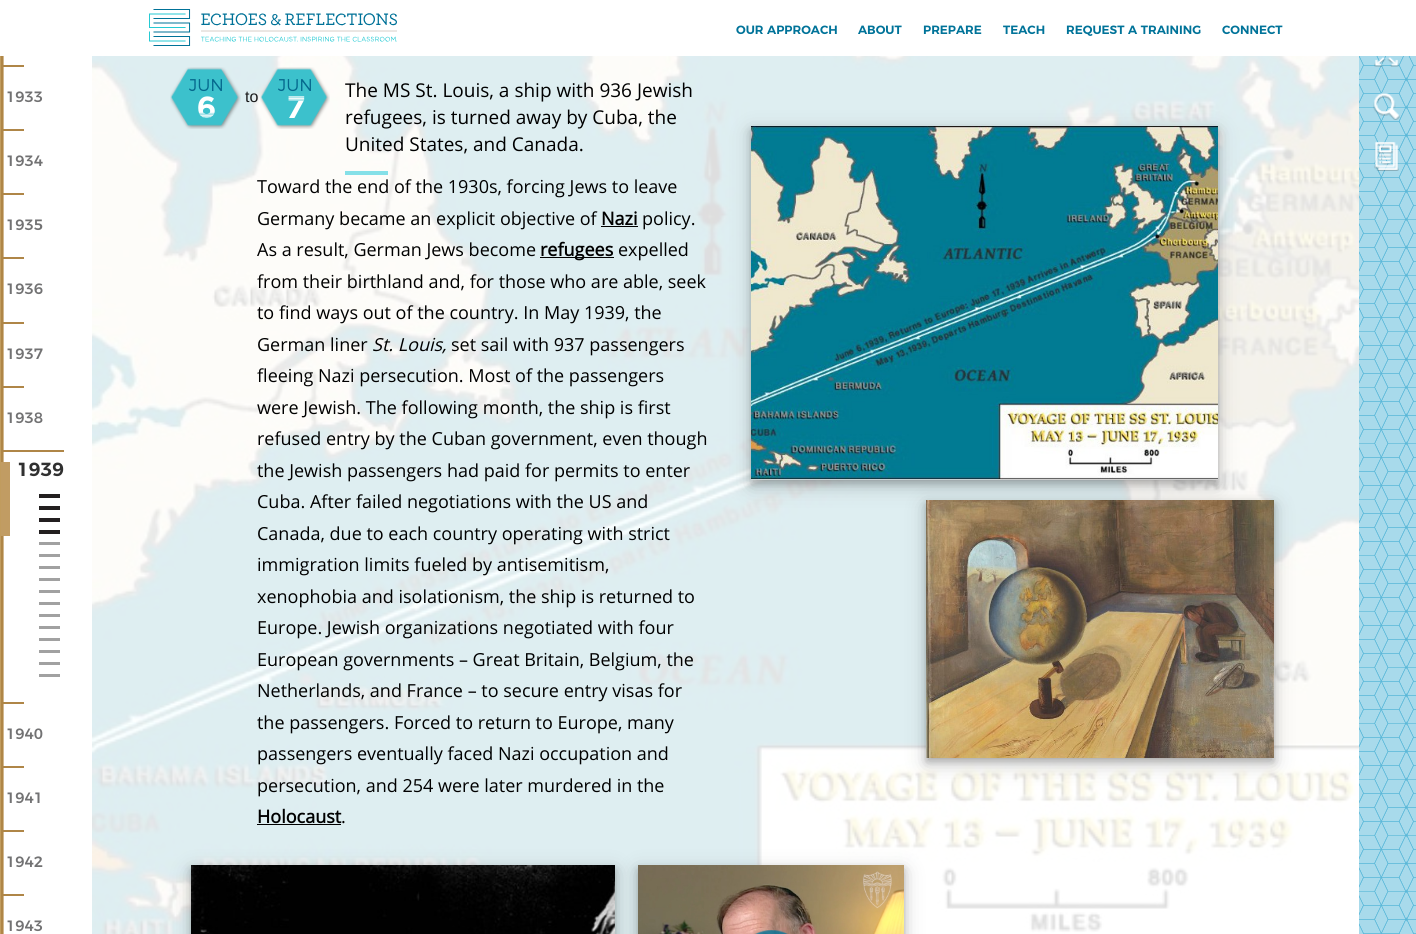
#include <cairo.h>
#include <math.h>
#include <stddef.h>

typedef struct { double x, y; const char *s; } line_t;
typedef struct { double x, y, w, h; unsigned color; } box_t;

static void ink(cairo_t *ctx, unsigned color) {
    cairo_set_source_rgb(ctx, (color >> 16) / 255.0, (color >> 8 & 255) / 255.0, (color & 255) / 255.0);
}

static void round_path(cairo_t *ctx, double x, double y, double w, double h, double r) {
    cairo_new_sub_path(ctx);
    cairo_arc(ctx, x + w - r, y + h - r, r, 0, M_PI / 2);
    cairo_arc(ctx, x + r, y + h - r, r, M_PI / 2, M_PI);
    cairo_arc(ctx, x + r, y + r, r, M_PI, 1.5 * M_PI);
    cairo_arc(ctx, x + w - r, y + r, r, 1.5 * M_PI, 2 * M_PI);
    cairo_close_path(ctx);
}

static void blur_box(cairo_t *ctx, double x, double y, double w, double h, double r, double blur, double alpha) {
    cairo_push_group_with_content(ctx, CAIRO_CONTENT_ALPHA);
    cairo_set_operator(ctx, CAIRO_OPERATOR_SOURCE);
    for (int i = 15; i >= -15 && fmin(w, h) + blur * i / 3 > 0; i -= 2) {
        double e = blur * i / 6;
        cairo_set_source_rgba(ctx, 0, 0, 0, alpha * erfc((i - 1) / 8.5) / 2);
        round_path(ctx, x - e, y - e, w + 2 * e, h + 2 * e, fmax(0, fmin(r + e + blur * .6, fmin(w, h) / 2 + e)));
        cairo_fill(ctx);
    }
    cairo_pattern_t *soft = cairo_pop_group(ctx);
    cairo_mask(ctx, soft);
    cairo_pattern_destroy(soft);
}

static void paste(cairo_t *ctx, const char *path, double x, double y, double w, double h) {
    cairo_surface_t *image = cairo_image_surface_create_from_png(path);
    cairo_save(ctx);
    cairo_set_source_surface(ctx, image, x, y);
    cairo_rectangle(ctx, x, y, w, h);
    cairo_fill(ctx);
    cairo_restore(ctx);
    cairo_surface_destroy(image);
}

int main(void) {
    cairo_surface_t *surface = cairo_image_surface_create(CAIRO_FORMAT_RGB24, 1416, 934);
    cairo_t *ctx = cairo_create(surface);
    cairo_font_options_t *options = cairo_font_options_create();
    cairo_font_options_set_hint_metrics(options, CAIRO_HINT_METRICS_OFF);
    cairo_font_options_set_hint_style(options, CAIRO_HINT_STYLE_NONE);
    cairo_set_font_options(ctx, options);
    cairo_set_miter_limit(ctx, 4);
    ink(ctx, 0xFFFFFF);
    cairo_paint(ctx);
    paste(ctx, "media/1.png", 149, 9, 248, 37);
    cairo_select_font_face(ctx, "Montserrat SemiBold", CAIRO_FONT_SLANT_NORMAL, CAIRO_FONT_WEIGHT_NORMAL);
    cairo_set_font_size(ctx, 12);
    ink(ctx, 0x007399);
    {
        static const line_t items[] = {
            {736, 34, "OUR APPROACH"},
            {858, 34, "ABOUT"},
            {923, 34, "PREPARE"},
            {1003, 34, "TEACH"},
            {1066, 34, "REQUEST A TRAINING"},
            {1222, 34, "CONNECT"},
        };
        for (size_t i = 0; i < sizeof items / sizeof *items; i++) {
            cairo_move_to(ctx, items[i].x, items[i].y);
            cairo_show_text(ctx, items[i].s);
        }
    }
    paste(ctx, "media/4.png", 1359, 56, 57, 878);
    paste(ctx, "media/2.png", 1374, 56, 25, 11);
    {
        static const box_t items[] = {
            {0, 56, 1, 878, 0xC19C5E},
            {1, 56, 2, 878, 0xAF8647},
            {3, 56, 1, 878, 0xD2B88F},
            {1, 65, 23, 2, 0xAF8647},
        };
        for (size_t i = 0; i < sizeof items / sizeof *items; i++) {
            ink(ctx, items[i].color);
            cairo_rectangle(ctx, items[i].x, items[i].y, items[i].w, items[i].h);
            cairo_fill(ctx);
        }
    }
    cairo_select_font_face(ctx, "Montserrat Medium", CAIRO_FONT_SLANT_NORMAL, CAIRO_FONT_WEIGHT_NORMAL);
    cairo_set_font_size(ctx, 15);
    ink(ctx, 0x727273);
    cairo_move_to(ctx, 6, 102);
    cairo_show_text(ctx, "1933");
    ink(ctx, 0xAF8647);
    cairo_rectangle(ctx, 1, 129, 23, 2);
    cairo_fill(ctx);
    ink(ctx, 0x727273);
    cairo_move_to(ctx, 6, 166);
    cairo_show_text(ctx, "1934");
    ink(ctx, 0xAF8647);
    cairo_rectangle(ctx, 1, 193, 23, 2);
    cairo_fill(ctx);
    ink(ctx, 0x727273);
    cairo_move_to(ctx, 6, 230);
    cairo_show_text(ctx, "1935");
    ink(ctx, 0xAF8647);
    cairo_rectangle(ctx, 1, 257, 23, 2);
    cairo_fill(ctx);
    ink(ctx, 0x727273);
    cairo_move_to(ctx, 6, 294);
    cairo_show_text(ctx, "1936");
    ink(ctx, 0xAF8647);
    cairo_rectangle(ctx, 1, 322, 23, 2);
    cairo_fill(ctx);
    ink(ctx, 0x727273);
    cairo_move_to(ctx, 6, 359);
    cairo_show_text(ctx, "1937");
    ink(ctx, 0xAF8647);
    cairo_rectangle(ctx, 1, 386, 23, 2);
    cairo_fill(ctx);
    ink(ctx, 0x727273);
    cairo_move_to(ctx, 6, 423);
    cairo_show_text(ctx, "1938");
    ink(ctx, 0xAF8647);
    cairo_rectangle(ctx, 1, 450, 63, 2);
    cairo_fill(ctx);
    ink(ctx, 0xC19C63);
    cairo_rectangle(ctx, 1, 462, 9, 74);
    cairo_fill(ctx);
    cairo_select_font_face(ctx, "Montserrat SemiBold", CAIRO_FONT_SLANT_NORMAL, CAIRO_FONT_WEIGHT_NORMAL);
    cairo_set_font_size(ctx, 19);
    ink(ctx, 0x303030);
    cairo_move_to(ctx, 17, 476);
    cairo_show_text(ctx, "1939");
    {
        static const box_t items[] = {
            {39, 494, 21, 4, 0x231F20},
            {39, 506, 21, 4, 0x231F20},
            {39, 518, 21, 4, 0x231F20},
            {39, 530, 21, 4, 0x231F20},
            {39, 542, 21, 3, 0xA1A1A1},
            {39, 554, 21, 3, 0xA1A1A1},
            {39, 566, 21, 3, 0xA1A1A1},
            {39, 578, 21, 3, 0xA1A1A1},
            {39, 590, 21, 3, 0xA1A1A1},
            {39, 602, 21, 3, 0xA1A1A1},
            {39, 614, 21, 3, 0xA1A1A1},
            {39, 626, 21, 3, 0xA1A1A1},
            {39, 638, 21, 3, 0xA1A1A1},
            {39, 650, 21, 3, 0xA1A1A1},
            {39, 662, 21, 3, 0xA1A1A1},
            {39, 674, 21, 3, 0xA1A1A1},
            {1, 702, 23, 2, 0xAF8647},
        };
        for (size_t i = 0; i < sizeof items / sizeof *items; i++) {
            ink(ctx, items[i].color);
            cairo_rectangle(ctx, items[i].x, items[i].y, items[i].w, items[i].h);
            cairo_fill(ctx);
        }
    }
    cairo_select_font_face(ctx, "Montserrat Medium", CAIRO_FONT_SLANT_NORMAL, CAIRO_FONT_WEIGHT_NORMAL);
    cairo_set_font_size(ctx, 15);
    ink(ctx, 0x727273);
    cairo_move_to(ctx, 6, 739);
    cairo_show_text(ctx, "1940");
    ink(ctx, 0xAF8647);
    cairo_rectangle(ctx, 1, 766, 23, 2);
    cairo_fill(ctx);
    ink(ctx, 0x727273);
    cairo_move_to(ctx, 6, 803);
    cairo_show_text(ctx, "1941");
    ink(ctx, 0xAF8647);
    cairo_rectangle(ctx, 1, 830, 23, 2);
    cairo_fill(ctx);
    ink(ctx, 0x727273);
    cairo_move_to(ctx, 6, 867);
    cairo_show_text(ctx, "1942");
    ink(ctx, 0xAF8647);
    cairo_rectangle(ctx, 1, 894, 23, 2);
    cairo_fill(ctx);
    ink(ctx, 0x727273);
    cairo_move_to(ctx, 6, 931);
    cairo_show_text(ctx, "1943");
    paste(ctx, "media/3.png", 92, 56, 1267, 878);
    paste(ctx, "media/5.png", 170, 67, 71, 62);
    cairo_select_font_face(ctx, "Montserrat Light", CAIRO_FONT_SLANT_NORMAL, CAIRO_FONT_WEIGHT_NORMAL);
    cairo_set_font_size(ctx, 17);
    ink(ctx, 0x04688D);
    cairo_move_to(ctx, 189, 91);
    cairo_show_text(ctx, "JUN");
    cairo_select_font_face(ctx, "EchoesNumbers", CAIRO_FONT_SLANT_NORMAL, CAIRO_FONT_WEIGHT_NORMAL);
    cairo_set_font_size(ctx, 31);
    ink(ctx, 0xFFFFFF);
    cairo_move_to(ctx, 197, 118);
    cairo_show_text(ctx, "6");
    cairo_select_font_face(ctx, "Liberation Sans", CAIRO_FONT_SLANT_NORMAL, CAIRO_FONT_WEIGHT_NORMAL);
    cairo_set_font_size(ctx, 16);
    ink(ctx, 0x1A1A1A);
    cairo_move_to(ctx, 245, 102);
    cairo_show_text(ctx, "to");
    paste(ctx, "media/6.png", 260, 67, 70, 62);
    cairo_select_font_face(ctx, "Montserrat Light", CAIRO_FONT_SLANT_NORMAL, CAIRO_FONT_WEIGHT_NORMAL);
    cairo_set_font_size(ctx, 17);
    ink(ctx, 0x04688D);
    cairo_move_to(ctx, 278, 91);
    cairo_show_text(ctx, "JUN");
    cairo_select_font_face(ctx, "EchoesNumbers", CAIRO_FONT_SLANT_NORMAL, CAIRO_FONT_WEIGHT_NORMAL);
    cairo_set_font_size(ctx, 31);
    ink(ctx, 0xFFFFFF);
    cairo_move_to(ctx, 287, 118);
    cairo_show_text(ctx, "7");
    cairo_select_font_face(ctx, "Open Sans", CAIRO_FONT_SLANT_NORMAL, CAIRO_FONT_WEIGHT_NORMAL);
    cairo_set_font_size(ctx, 19);
    ink(ctx, 0x000000);
    {
        static const line_t items[] = {
            {345, 97, "The MS St. Louis, a ship with 936 Jewish"},
            {345, 124, "refugees, is turned away by Cuba, the"},
            {345, 151, "United States, and Canada."},
        };
        for (size_t i = 0; i < sizeof items / sizeof *items; i++) {
            cairo_move_to(ctx, items[i].x, items[i].y);
            cairo_show_text(ctx, items[i].s);
        }
    }
    ink(ctx, 0x85E0E8);
    cairo_rectangle(ctx, 345, 171, 43, 4);
    cairo_fill(ctx);
    cairo_set_font_size(ctx, 18);
    ink(ctx, 0x000000);
    cairo_move_to(ctx, 257, 193);
    cairo_show_text(ctx, "Toward the end of the 1930s, forcing Jews to leave");
    cairo_move_to(ctx, 257, 225);
    cairo_show_text(ctx, "Germany became an explicit objective of");
    cairo_select_font_face(ctx, "Open Sans", CAIRO_FONT_SLANT_NORMAL, CAIRO_FONT_WEIGHT_BOLD);
    cairo_move_to(ctx, 601, 225);
    cairo_show_text(ctx, "Nazi");
    cairo_rectangle(ctx, 601, 226, 37, 1);
    cairo_fill(ctx);
    cairo_select_font_face(ctx, "Open Sans", CAIRO_FONT_SLANT_NORMAL, CAIRO_FONT_WEIGHT_NORMAL);
    cairo_move_to(ctx, 642, 225);
    cairo_show_text(ctx, "policy.");
    cairo_move_to(ctx, 257, 256);
    cairo_show_text(ctx, "As a result, German Jews become");
    cairo_rectangle(ctx, 540, 257, 74, 1);
    cairo_fill(ctx);
    cairo_select_font_face(ctx, "Open Sans", CAIRO_FONT_SLANT_NORMAL, CAIRO_FONT_WEIGHT_BOLD);
    cairo_move_to(ctx, 540, 256);
    cairo_show_text(ctx, "refugees");
    cairo_select_font_face(ctx, "Open Sans", CAIRO_FONT_SLANT_NORMAL, CAIRO_FONT_WEIGHT_NORMAL);
    {
        static const line_t items[] = {
            {618, 256, "expelled"},
            {257, 288, "from their birthland and, for those who are able, seek"},
            {257, 319, "to find ways out of the country. In May 1939, the"},
            {257, 351, "German liner"},
        };
        for (size_t i = 0; i < sizeof items / sizeof *items; i++) {
            cairo_move_to(ctx, items[i].x, items[i].y);
            cairo_show_text(ctx, items[i].s);
        }
    }
    cairo_select_font_face(ctx, "Open Sans", CAIRO_FONT_SLANT_ITALIC, CAIRO_FONT_WEIGHT_NORMAL);
    cairo_move_to(ctx, 372, 351);
    cairo_show_text(ctx, "St. Louis,");
    cairo_select_font_face(ctx, "Open Sans", CAIRO_FONT_SLANT_NORMAL, CAIRO_FONT_WEIGHT_NORMAL);
    {
        static const line_t items[] = {
            {451, 351, "set sail with 937 passengers"},
            {257, 382, "fleeing Nazi persecution. Most of the passengers"},
            {257, 414, "were Jewish. The following month, the ship is first"},
            {257, 445, "refused entry by the Cuban government, even though"},
            {257, 477, "the Jewish passengers had paid for permits to enter"},
            {257, 508, "Cuba. After failed negotiations with the US and"},
            {257, 540, "Canada, due to each country operating with strict"},
            {257, 571, "immigration limits fueled by antisemitism,"},
            {257, 603, "xenophobia and isolationism, the ship is returned to"},
            {257, 634, "Europe. Jewish organizations negotiated with four"},
            {257, 666, "European governments – Great Britain, Belgium, the"},
            {257, 697, "Netherlands, and France – to secure entry visas for"},
            {257, 729, "the passengers. Forced to return to Europe, many"},
            {257, 760, "passengers eventually faced Nazi occupation and"},
            {257, 792, "persecution, and 254 were later murdered in the"},
        };
        for (size_t i = 0; i < sizeof items / sizeof *items; i++) {
            cairo_move_to(ctx, items[i].x, items[i].y);
            cairo_show_text(ctx, items[i].s);
        }
    }
    cairo_select_font_face(ctx, "Open Sans", CAIRO_FONT_SLANT_NORMAL, CAIRO_FONT_WEIGHT_BOLD);
    cairo_move_to(ctx, 257, 823);
    cairo_show_text(ctx, "Holocaust");
    cairo_select_font_face(ctx, "Open Sans", CAIRO_FONT_SLANT_NORMAL, CAIRO_FONT_WEIGHT_NORMAL);
    cairo_move_to(ctx, 341, 823);
    cairo_show_text(ctx, ".");
    cairo_rectangle(ctx, 257, 824, 84, 1);
    cairo_fill(ctx);
    ink(ctx, 0x000000);
    blur_box(ctx, 926, 506, 348, 258, 0, 10, 0.19);
    blur_box(ctx, 926, 504, 348, 258, 0, 4, 0.2);
    paste(ctx, "media/8.png", 926, 500, 348, 258);
    blur_box(ctx, 751, 132, 467, 354, 0, 10, 0.19);
    blur_box(ctx, 751, 130, 467, 354, 0, 4, 0.2);
    paste(ctx, "media/7.png", 751, 126, 467, 354);
    blur_box(ctx, 191, 871, 424, 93, 0, 10, 0.19);
    blur_box(ctx, 191, 869, 424, 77, 0, 4, 0.2);
    paste(ctx, "media/9.png", 191, 865, 424, 69);
    blur_box(ctx, 638, 871, 266, 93, 0, 10, 0.19);
    blur_box(ctx, 638, 869, 266, 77, 0, 4, 0.2);
    paste(ctx, "media/10.png", 638, 865, 266, 69);
    paste(ctx, "media/11.png", 755, 930, 33, 4);
    paste(ctx, "media/12.png", 1373, 93, 27, 27);
    paste(ctx, "media/13.png", 1374, 142, 25, 29);
    cairo_surface_write_to_png(surface, "image.png");
    cairo_font_options_destroy(options);
    cairo_destroy(ctx);
    cairo_surface_destroy(surface);
    return 0;
}
